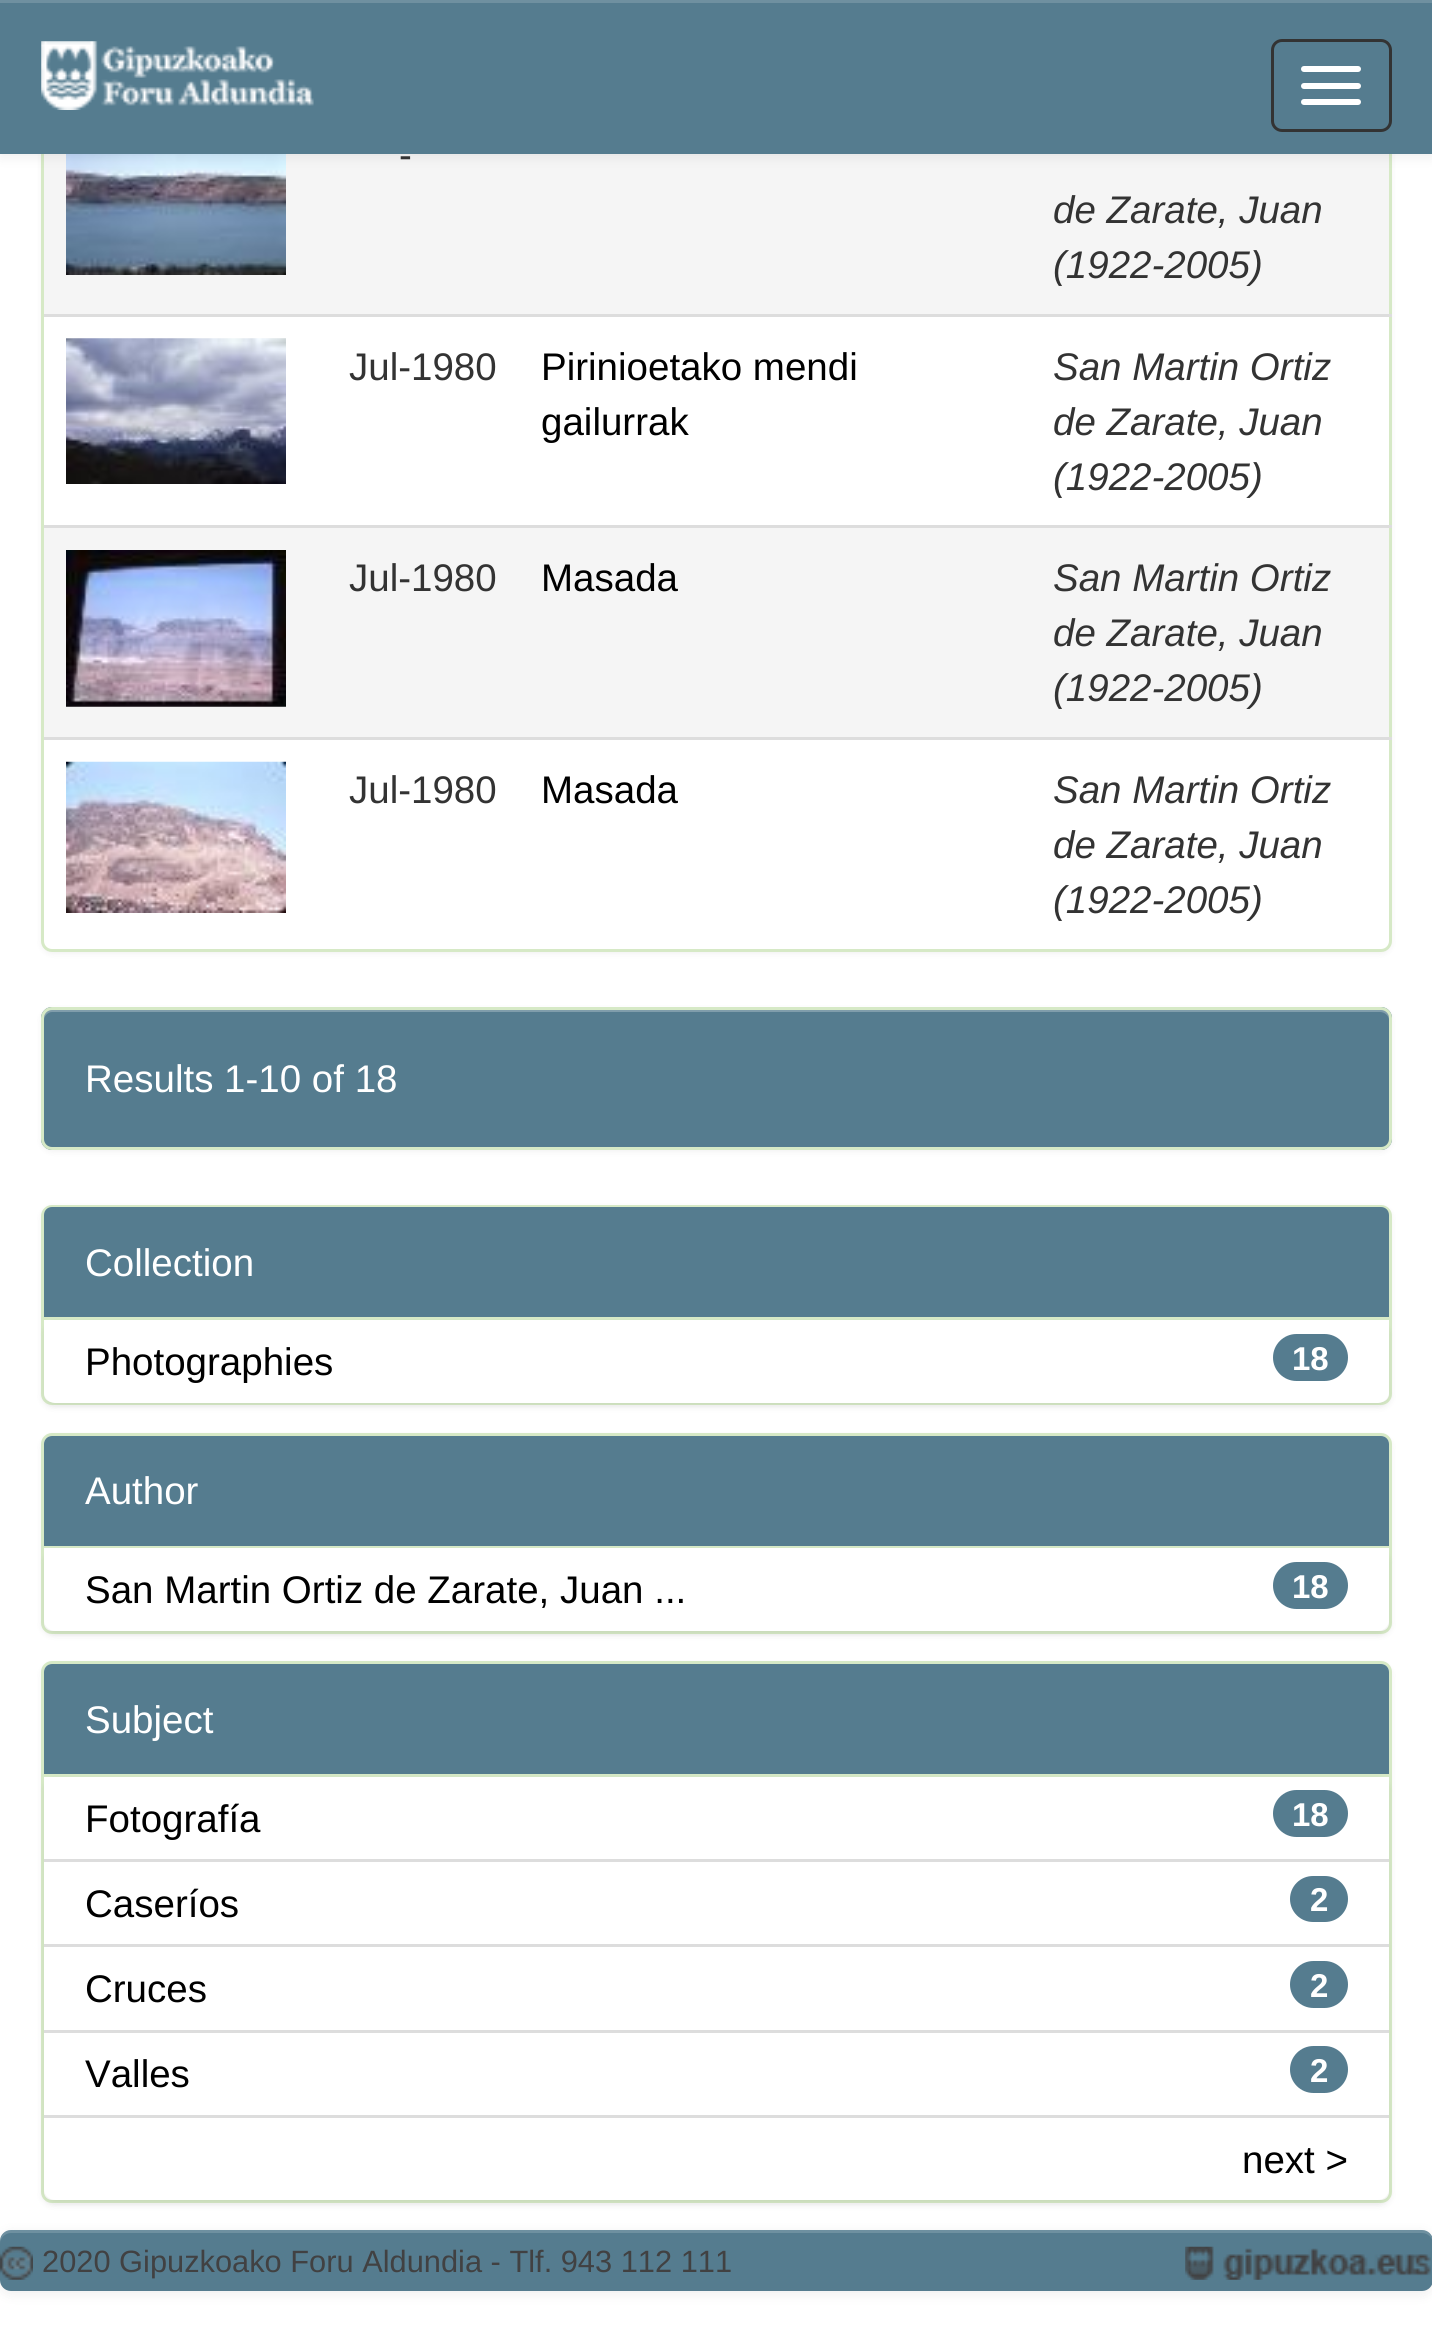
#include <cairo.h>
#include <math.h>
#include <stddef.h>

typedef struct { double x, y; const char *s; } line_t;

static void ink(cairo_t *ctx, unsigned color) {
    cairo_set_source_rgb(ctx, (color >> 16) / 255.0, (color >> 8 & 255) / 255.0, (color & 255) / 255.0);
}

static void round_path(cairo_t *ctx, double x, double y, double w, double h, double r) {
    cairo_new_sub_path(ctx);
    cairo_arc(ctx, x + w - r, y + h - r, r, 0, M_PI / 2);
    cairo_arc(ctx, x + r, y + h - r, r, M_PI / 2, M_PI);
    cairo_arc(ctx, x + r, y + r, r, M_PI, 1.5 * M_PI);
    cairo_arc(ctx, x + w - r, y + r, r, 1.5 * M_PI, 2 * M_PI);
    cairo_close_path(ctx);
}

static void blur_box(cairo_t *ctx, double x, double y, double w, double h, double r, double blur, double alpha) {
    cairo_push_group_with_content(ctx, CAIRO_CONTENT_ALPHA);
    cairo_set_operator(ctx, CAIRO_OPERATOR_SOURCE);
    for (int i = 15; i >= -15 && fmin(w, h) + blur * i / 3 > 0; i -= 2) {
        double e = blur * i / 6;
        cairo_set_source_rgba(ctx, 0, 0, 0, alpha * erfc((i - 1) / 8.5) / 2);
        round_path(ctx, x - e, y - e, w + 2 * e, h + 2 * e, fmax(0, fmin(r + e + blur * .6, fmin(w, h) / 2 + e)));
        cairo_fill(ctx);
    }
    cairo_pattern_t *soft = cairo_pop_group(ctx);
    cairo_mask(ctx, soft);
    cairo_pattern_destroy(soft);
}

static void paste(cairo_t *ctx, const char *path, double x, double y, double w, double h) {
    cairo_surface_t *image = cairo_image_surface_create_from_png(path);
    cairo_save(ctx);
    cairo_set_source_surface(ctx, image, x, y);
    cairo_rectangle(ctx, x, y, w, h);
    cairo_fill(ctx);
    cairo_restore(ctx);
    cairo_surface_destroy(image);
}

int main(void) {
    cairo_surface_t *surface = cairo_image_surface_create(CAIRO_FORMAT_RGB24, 1432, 2344);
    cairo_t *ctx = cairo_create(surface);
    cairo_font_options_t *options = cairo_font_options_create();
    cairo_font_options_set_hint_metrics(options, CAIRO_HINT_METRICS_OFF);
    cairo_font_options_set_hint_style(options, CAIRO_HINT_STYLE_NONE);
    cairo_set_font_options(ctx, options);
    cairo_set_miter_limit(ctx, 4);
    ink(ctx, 0xFFFFFF);
    cairo_paint(ctx);
    ink(ctx, 0x000000);
    blur_box(ctx, 41, -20, 1351, 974, 11, 3, 0.05);
    ink(ctx, 0xFFFFFF);
    round_path(ctx, 42.5, -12.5, 1348, 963, 9.5);
    cairo_fill_preserve(ctx);
    ink(ctx, 0xD6E9C6);
    cairo_set_line_width(ctx, 3);
    cairo_stroke(ctx);
    ink(ctx, 0xF5F5F5);
    cairo_rectangle(ctx, 44, 154, 1345, 160);
    cairo_fill(ctx);
    paste(ctx, "media/2.png", 66, 154, 220, 121);
    ink(ctx, 0x000000);
    blur_box(ctx, 0, 3, 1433, 154, 0, 7, 0.07);
    ink(ctx, 0x557C8F);
    cairo_rectangle(ctx, 0, 3, 1432, 151);
    cairo_fill(ctx);
    ink(ctx, 0x6F90A0);
    cairo_rectangle(ctx, 0, 0, 1432, 3);
    cairo_fill(ctx);
    paste(ctx, "media/1.png", 41, 41, 273, 69);
    round_path(ctx, 1272.5, 40.5, 118, 90, 9.5);
    ink(ctx, 0x333333);
    cairo_stroke(ctx);
    ink(ctx, 0xFFFFFF);
    round_path(ctx, 1301, 66, 60, 6, 3);
    cairo_fill(ctx);
    round_path(ctx, 1301, 83, 60, 6, 3);
    cairo_fill(ctx);
    round_path(ctx, 1301, 99, 60, 6, 3);
    cairo_fill(ctx);
    cairo_select_font_face(ctx, "Liberation Sans", CAIRO_FONT_SLANT_NORMAL, CAIRO_FONT_WEIGHT_NORMAL);
    cairo_set_font_size(ctx, 38.5);
    ink(ctx, 0x333333);
    cairo_move_to(ctx, 399, 168);
    cairo_show_text(ctx, "-");
    cairo_select_font_face(ctx, "Liberation Sans", CAIRO_FONT_SLANT_ITALIC, CAIRO_FONT_WEIGHT_NORMAL);
    cairo_move_to(ctx, 1053, 223);
    cairo_show_text(ctx, "de Zarate, Juan");
    cairo_move_to(ctx, 1053, 278);
    cairo_show_text(ctx, "(1922-2005)");
    paste(ctx, "media/3.png", 66, 338, 220, 146);
    cairo_select_font_face(ctx, "Liberation Sans", CAIRO_FONT_SLANT_NORMAL, CAIRO_FONT_WEIGHT_NORMAL);
    cairo_move_to(ctx, 349, 380);
    cairo_show_text(ctx, "Jul-1980");
    ink(ctx, 0x000000);
    cairo_move_to(ctx, 541, 380);
    cairo_show_text(ctx, "Pirinioetako mendi");
    cairo_move_to(ctx, 541, 435);
    cairo_show_text(ctx, "gailurrak");
    ink(ctx, 0xDDDDDD);
    cairo_rectangle(ctx, 44, 314, 1348, 3);
    cairo_fill(ctx);
    cairo_select_font_face(ctx, "Liberation Sans", CAIRO_FONT_SLANT_ITALIC, CAIRO_FONT_WEIGHT_NORMAL);
    ink(ctx, 0x333333);
    {
        static const line_t items[] = {
            {1053, 380, "San Martin Ortiz"},
            {1053, 435, "de Zarate, Juan"},
            {1053, 490, "(1922-2005)"},
        };
        for (size_t i = 0; i < sizeof items / sizeof *items; i++) {
            cairo_move_to(ctx, items[i].x, items[i].y);
            cairo_show_text(ctx, items[i].s);
        }
    }
    ink(ctx, 0xF5F5F5);
    cairo_rectangle(ctx, 44, 528, 1345, 209);
    cairo_fill(ctx);
    paste(ctx, "media/4.png", 66, 550, 220, 157);
    cairo_select_font_face(ctx, "Liberation Sans", CAIRO_FONT_SLANT_NORMAL, CAIRO_FONT_WEIGHT_NORMAL);
    ink(ctx, 0x333333);
    cairo_move_to(ctx, 349, 591);
    cairo_show_text(ctx, "Jul-1980");
    ink(ctx, 0x000000);
    cairo_move_to(ctx, 541, 591);
    cairo_show_text(ctx, "Masada");
    ink(ctx, 0xDDDDDD);
    cairo_rectangle(ctx, 44, 525, 1348, 3);
    cairo_fill(ctx);
    cairo_select_font_face(ctx, "Liberation Sans", CAIRO_FONT_SLANT_ITALIC, CAIRO_FONT_WEIGHT_NORMAL);
    ink(ctx, 0x333333);
    {
        static const line_t items[] = {
            {1053, 591, "San Martin Ortiz"},
            {1053, 646, "de Zarate, Juan"},
            {1053, 701, "(1922-2005)"},
        };
        for (size_t i = 0; i < sizeof items / sizeof *items; i++) {
            cairo_move_to(ctx, items[i].x, items[i].y);
            cairo_show_text(ctx, items[i].s);
        }
    }
    paste(ctx, "media/5.png", 66, 761, 220, 152);
    cairo_select_font_face(ctx, "Liberation Sans", CAIRO_FONT_SLANT_NORMAL, CAIRO_FONT_WEIGHT_NORMAL);
    cairo_move_to(ctx, 349, 803);
    cairo_show_text(ctx, "Jul-1980");
    ink(ctx, 0x000000);
    cairo_move_to(ctx, 541, 803);
    cairo_show_text(ctx, "Masada");
    ink(ctx, 0xDDDDDD);
    cairo_rectangle(ctx, 44, 737, 1348, 3);
    cairo_fill(ctx);
    cairo_select_font_face(ctx, "Liberation Sans", CAIRO_FONT_SLANT_ITALIC, CAIRO_FONT_WEIGHT_NORMAL);
    ink(ctx, 0x333333);
    {
        static const line_t items[] = {
            {1053, 803, "San Martin Ortiz"},
            {1053, 858, "de Zarate, Juan"},
            {1053, 913, "(1922-2005)"},
        };
        for (size_t i = 0; i < sizeof items / sizeof *items; i++) {
            cairo_move_to(ctx, items[i].x, items[i].y);
            cairo_show_text(ctx, items[i].s);
        }
    }
    ink(ctx, 0x000000);
    blur_box(ctx, 41, 1009, 1351, 143, 11, 3, 0.05);
    ink(ctx, 0x557C8F);
    round_path(ctx, 41, 1007, 1351, 143, 11);
    cairo_fill(ctx);
    ink(ctx, 0x809DAB);
    cairo_new_path(ctx);
    cairo_move_to(ctx, 52, 1012);
    cairo_line_to(ctx, 1380, 1012);
    cairo_curve_to(ctx, 1385, 1012, 1389, 1016, 1389, 1020);
    cairo_line_to(ctx, 1389, 1017);
    cairo_curve_to(ctx, 1389, 1013, 1385, 1009, 1381, 1009);
    cairo_line_to(ctx, 52, 1009);
    cairo_curve_to(ctx, 48, 1009, 44, 1013, 44, 1017);
    cairo_line_to(ctx, 44, 1020);
    cairo_curve_to(ctx, 44, 1016, 48, 1012, 52, 1012);
    cairo_close_path(ctx);
    cairo_fill(ctx);
    round_path(ctx, 42.5, 1008.5, 1348, 140, 9.5);
    ink(ctx, 0xD6E9C6);
    cairo_stroke(ctx);
    cairo_select_font_face(ctx, "Liberation Sans", CAIRO_FONT_SLANT_NORMAL, CAIRO_FONT_WEIGHT_NORMAL);
    ink(ctx, 0xFFFFFF);
    cairo_move_to(ctx, 85, 1092);
    cairo_show_text(ctx, "Results 1-10 of 18");
    ink(ctx, 0x000000);
    blur_box(ctx, 41, 1207, 1351, 201, 11, 3, 0.05);
    ink(ctx, 0xFFFFFF);
    round_path(ctx, 42.5, 1206.5, 1348, 197, 9.5);
    cairo_fill_preserve(ctx);
    ink(ctx, 0xD6E9C6);
    cairo_stroke(ctx);
    ink(ctx, 0x557C8F);
    cairo_new_path(ctx);
    cairo_move_to(ctx, 52, 1207);
    cairo_line_to(ctx, 1381, 1207);
    cairo_curve_to(ctx, 1385.5, 1207, 1389, 1210.5, 1389, 1215);
    cairo_line_to(ctx, 1389, 1320);
    cairo_line_to(ctx, 44, 1320);
    cairo_line_to(ctx, 44, 1215);
    cairo_curve_to(ctx, 44, 1210.5, 47.5, 1207, 52, 1207);
    cairo_close_path(ctx);
    cairo_fill(ctx);
    ink(ctx, 0xD6E9C6);
    cairo_rectangle(ctx, 44, 1317, 1345, 3);
    cairo_fill(ctx);
    ink(ctx, 0xFFFFFF);
    cairo_move_to(ctx, 85, 1276);
    cairo_show_text(ctx, "Collection");
    ink(ctx, 0x000000);
    blur_box(ctx, 44, 1323, 1345, 82, 11, 3, 0.07);
    ink(ctx, 0xFFFFFF);
    cairo_new_path(ctx);
    cairo_move_to(ctx, 44, 1320);
    cairo_line_to(ctx, 1389, 1320);
    cairo_line_to(ctx, 1389, 1392);
    cairo_curve_to(ctx, 1389, 1398, 1384, 1403, 1378, 1403);
    cairo_line_to(ctx, 55, 1403);
    cairo_curve_to(ctx, 49, 1403, 44, 1398, 44, 1392);
    cairo_close_path(ctx);
    cairo_fill(ctx);
    ink(ctx, 0x000000);
    cairo_move_to(ctx, 85, 1375);
    cairo_show_text(ctx, "Photographies");
    ink(ctx, 0x557C8F);
    round_path(ctx, 1273, 1334, 75, 47, 23.5);
    cairo_fill(ctx);
    cairo_select_font_face(ctx, "Liberation Sans", CAIRO_FONT_SLANT_NORMAL, CAIRO_FONT_WEIGHT_BOLD);
    cairo_set_font_size(ctx, 33);
    ink(ctx, 0xFFFFFF);
    cairo_move_to(ctx, 1292, 1370);
    cairo_show_text(ctx, "18");
    ink(ctx, 0x000000);
    blur_box(ctx, 41, 1436, 1351, 200, 11, 3, 0.05);
    ink(ctx, 0xFFFFFF);
    round_path(ctx, 42.5, 1434.5, 1348, 198, 9.5);
    cairo_fill_preserve(ctx);
    ink(ctx, 0xD6E9C6);
    cairo_stroke(ctx);
    ink(ctx, 0x557C8F);
    cairo_new_path(ctx);
    cairo_move_to(ctx, 52, 1436);
    cairo_line_to(ctx, 1381, 1436);
    cairo_curve_to(ctx, 1385.5, 1436, 1389, 1439.5, 1389, 1444);
    cairo_line_to(ctx, 1389, 1548);
    cairo_line_to(ctx, 44, 1548);
    cairo_line_to(ctx, 44, 1444);
    cairo_curve_to(ctx, 44, 1439.5, 47.5, 1436, 52, 1436);
    cairo_close_path(ctx);
    cairo_fill(ctx);
    ink(ctx, 0xD6E9C6);
    cairo_rectangle(ctx, 44, 1546, 1345, 2);
    cairo_fill(ctx);
    cairo_select_font_face(ctx, "Liberation Sans", CAIRO_FONT_SLANT_NORMAL, CAIRO_FONT_WEIGHT_NORMAL);
    cairo_set_font_size(ctx, 38.5);
    ink(ctx, 0xFFFFFF);
    cairo_move_to(ctx, 85, 1504);
    cairo_show_text(ctx, "Author");
    ink(ctx, 0x000000);
    blur_box(ctx, 44, 1551, 1345, 83, 11, 3, 0.07);
    ink(ctx, 0xFFFFFF);
    cairo_new_path(ctx);
    cairo_move_to(ctx, 44, 1548);
    cairo_line_to(ctx, 1389, 1548);
    cairo_line_to(ctx, 1389, 1620);
    cairo_curve_to(ctx, 1389, 1626, 1384, 1631, 1378, 1631);
    cairo_line_to(ctx, 55, 1631);
    cairo_curve_to(ctx, 49, 1631, 44, 1626, 44, 1620);
    cairo_close_path(ctx);
    cairo_fill(ctx);
    ink(ctx, 0x000000);
    cairo_move_to(ctx, 85, 1603);
    cairo_show_text(ctx, "San Martin Ortiz de Zarate, Juan ...");
    ink(ctx, 0x557C8F);
    round_path(ctx, 1273, 1562, 75, 47, 23.5);
    cairo_fill(ctx);
    cairo_select_font_face(ctx, "Liberation Sans", CAIRO_FONT_SLANT_NORMAL, CAIRO_FONT_WEIGHT_BOLD);
    cairo_set_font_size(ctx, 33);
    ink(ctx, 0xFFFFFF);
    cairo_move_to(ctx, 1292, 1598);
    cairo_show_text(ctx, "18");
    ink(ctx, 0x000000);
    blur_box(ctx, 41, 1664, 1351, 542, 11, 3, 0.05);
    ink(ctx, 0xFFFFFF);
    round_path(ctx, 42.5, 1662.5, 1348, 539, 9.5);
    cairo_fill_preserve(ctx);
    ink(ctx, 0xD6E9C6);
    cairo_stroke(ctx);
    ink(ctx, 0x557C8F);
    cairo_new_path(ctx);
    cairo_move_to(ctx, 52, 1664);
    cairo_line_to(ctx, 1381, 1664);
    cairo_curve_to(ctx, 1385.5, 1664, 1389, 1667.5, 1389, 1672);
    cairo_line_to(ctx, 1389, 1777);
    cairo_line_to(ctx, 44, 1777);
    cairo_line_to(ctx, 44, 1672);
    cairo_curve_to(ctx, 44, 1667.5, 47.5, 1664, 52, 1664);
    cairo_close_path(ctx);
    cairo_fill(ctx);
    ink(ctx, 0xD6E9C6);
    cairo_rectangle(ctx, 44, 1774, 1345, 3);
    cairo_fill(ctx);
    cairo_select_font_face(ctx, "Liberation Sans", CAIRO_FONT_SLANT_NORMAL, CAIRO_FONT_WEIGHT_NORMAL);
    cairo_set_font_size(ctx, 38.5);
    ink(ctx, 0xFFFFFF);
    cairo_move_to(ctx, 85, 1733);
    cairo_show_text(ctx, "Subject");
    ink(ctx, 0x000000);
    blur_box(ctx, 44, 1779, 1345, 424, 11, 3, 0.07);
    ink(ctx, 0xFFFFFF);
    cairo_rectangle(ctx, 44, 1777, 1345, 82);
    cairo_fill(ctx);
    ink(ctx, 0xDDDDDD);
    cairo_rectangle(ctx, 44, 1859, 1345, 3);
    cairo_fill(ctx);
    ink(ctx, 0x000000);
    cairo_move_to(ctx, 85, 1832);
    cairo_show_text(ctx, "Fotografía");
    ink(ctx, 0x557C8F);
    round_path(ctx, 1273, 1790, 75, 47, 23.5);
    cairo_fill(ctx);
    cairo_select_font_face(ctx, "Liberation Sans", CAIRO_FONT_SLANT_NORMAL, CAIRO_FONT_WEIGHT_BOLD);
    cairo_set_font_size(ctx, 33);
    ink(ctx, 0xFFFFFF);
    cairo_move_to(ctx, 1292, 1826);
    cairo_show_text(ctx, "18");
    cairo_rectangle(ctx, 44, 1862, 1345, 82);
    cairo_fill(ctx);
    ink(ctx, 0xDDDDDD);
    cairo_rectangle(ctx, 44, 1944, 1345, 3);
    cairo_fill(ctx);
    cairo_select_font_face(ctx, "Liberation Sans", CAIRO_FONT_SLANT_NORMAL, CAIRO_FONT_WEIGHT_NORMAL);
    cairo_set_font_size(ctx, 38.5);
    ink(ctx, 0x000000);
    cairo_move_to(ctx, 85, 1917);
    cairo_show_text(ctx, "Caseríos");
    ink(ctx, 0x557C8F);
    round_path(ctx, 1290, 1876, 58, 46, 23);
    cairo_fill(ctx);
    cairo_select_font_face(ctx, "Liberation Sans", CAIRO_FONT_SLANT_NORMAL, CAIRO_FONT_WEIGHT_BOLD);
    cairo_set_font_size(ctx, 33);
    ink(ctx, 0xFFFFFF);
    cairo_move_to(ctx, 1310, 1911);
    cairo_show_text(ctx, "2");
    cairo_rectangle(ctx, 44, 1947, 1345, 83);
    cairo_fill(ctx);
    cairo_select_font_face(ctx, "Liberation Sans", CAIRO_FONT_SLANT_NORMAL, CAIRO_FONT_WEIGHT_NORMAL);
    cairo_set_font_size(ctx, 38.5);
    ink(ctx, 0x000000);
    cairo_move_to(ctx, 85, 2002);
    cairo_show_text(ctx, "Cruces");
    ink(ctx, 0x557C8F);
    round_path(ctx, 1290, 1961, 58, 47, 23.5);
    cairo_fill(ctx);
    cairo_select_font_face(ctx, "Liberation Sans", CAIRO_FONT_SLANT_NORMAL, CAIRO_FONT_WEIGHT_BOLD);
    cairo_set_font_size(ctx, 33);
    ink(ctx, 0xFFFFFF);
    cairo_move_to(ctx, 1310, 1997);
    cairo_show_text(ctx, "2");
    cairo_rectangle(ctx, 44, 2033, 1345, 82);
    cairo_fill(ctx);
    ink(ctx, 0xDDDDDD);
    cairo_rectangle(ctx, 44, 2030, 1345, 3);
    cairo_fill(ctx);
    cairo_select_font_face(ctx, "Liberation Sans", CAIRO_FONT_SLANT_NORMAL, CAIRO_FONT_WEIGHT_NORMAL);
    cairo_set_font_size(ctx, 38.5);
    ink(ctx, 0x000000);
    cairo_move_to(ctx, 85, 2087);
    cairo_show_text(ctx, "Valles");
    ink(ctx, 0x557C8F);
    round_path(ctx, 1290, 2046, 58, 47, 23.5);
    cairo_fill(ctx);
    cairo_select_font_face(ctx, "Liberation Sans", CAIRO_FONT_SLANT_NORMAL, CAIRO_FONT_WEIGHT_BOLD);
    cairo_set_font_size(ctx, 33);
    ink(ctx, 0xFFFFFF);
    cairo_move_to(ctx, 1310, 2082);
    cairo_show_text(ctx, "2");
    cairo_new_path(ctx);
    cairo_move_to(ctx, 44, 2115);
    cairo_line_to(ctx, 1389, 2115);
    cairo_line_to(ctx, 1389, 2189);
    cairo_curve_to(ctx, 1389, 2195, 1384, 2200, 1378, 2200);
    cairo_line_to(ctx, 55, 2200);
    cairo_curve_to(ctx, 49, 2200, 44, 2195, 44, 2189);
    cairo_close_path(ctx);
    cairo_fill(ctx);
    ink(ctx, 0xDDDDDD);
    cairo_rectangle(ctx, 44, 2115, 1345, 3);
    cairo_fill(ctx);
    cairo_select_font_face(ctx, "Liberation Sans", CAIRO_FONT_SLANT_NORMAL, CAIRO_FONT_WEIGHT_NORMAL);
    cairo_set_font_size(ctx, 38.5);
    ink(ctx, 0x000000);
    cairo_move_to(ctx, 1242, 2173);
    cairo_show_text(ctx, "next >");
    ink(ctx, 0x000000);
    blur_box(ctx, 0, 2233, 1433, 61, 11, 7, 0.07);
    ink(ctx, 0x557C8F);
    round_path(ctx, 0, 2230, 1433, 61, 11);
    cairo_fill(ctx);
    cairo_set_source_rgba(ctx, 1, 1, 1, 0.15);
    cairo_new_path(ctx);
    cairo_move_to(ctx, 11, 2233);
    cairo_line_to(ctx, 1422, 2233);
    cairo_curve_to(ctx, 1428, 2233, 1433, 2238, 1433, 2244);
    cairo_curve_to(ctx, 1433, 2237, 1430, 2230, 1422, 2230);
    cairo_line_to(ctx, 11, 2230);
    cairo_curve_to(ctx, 3, 2230, 0, 2237, 0, 2244);
    cairo_curve_to(ctx, 0, 2238, 5, 2233, 11, 2233);
    cairo_close_path(ctx);
    cairo_fill(ctx);
    paste(ctx, "media/6.png", 0, 2246, 33, 34);
    cairo_set_font_size(ctx, 30.8);
    ink(ctx, 0x414142);
    cairo_move_to(ctx, 42, 2272);
    cairo_show_text(ctx, "2020 Gipuzkoako Foru Aldundia - Tlf. 943 112 111");
    paste(ctx, "media/7.png", 1185, 2246, 246, 34);
    cairo_surface_write_to_png(surface, "image.png");
    cairo_font_options_destroy(options);
    cairo_destroy(ctx);
    cairo_surface_destroy(surface);
    return 0;
}
